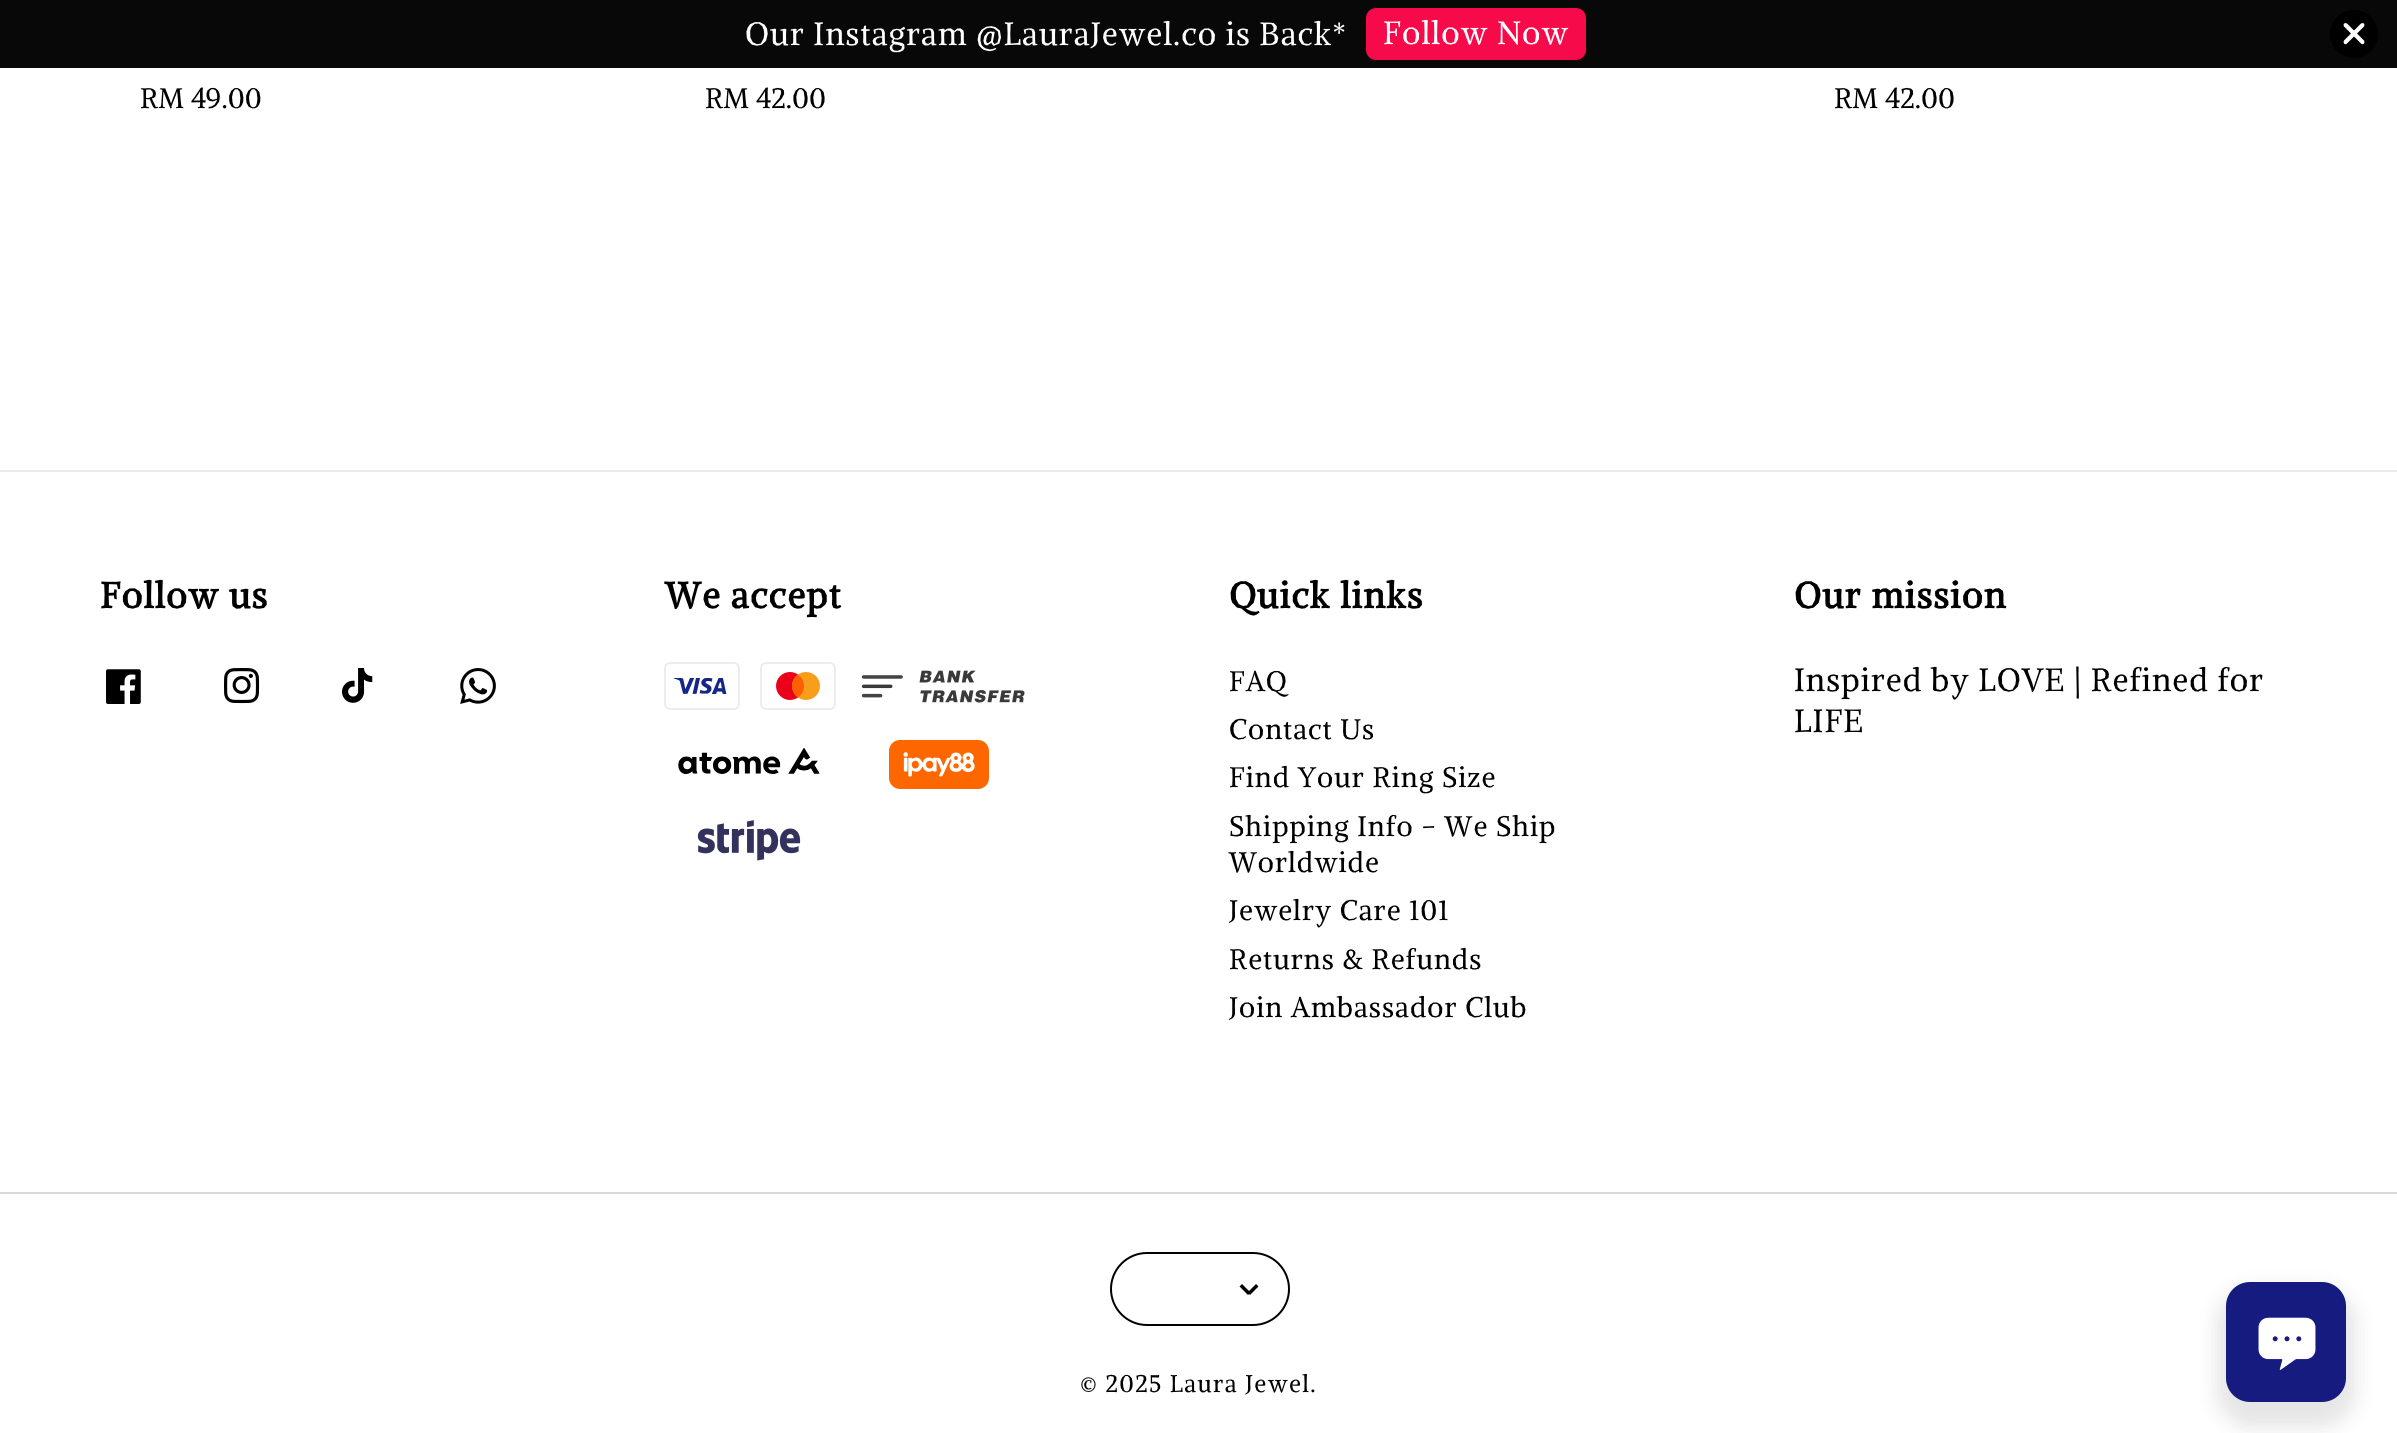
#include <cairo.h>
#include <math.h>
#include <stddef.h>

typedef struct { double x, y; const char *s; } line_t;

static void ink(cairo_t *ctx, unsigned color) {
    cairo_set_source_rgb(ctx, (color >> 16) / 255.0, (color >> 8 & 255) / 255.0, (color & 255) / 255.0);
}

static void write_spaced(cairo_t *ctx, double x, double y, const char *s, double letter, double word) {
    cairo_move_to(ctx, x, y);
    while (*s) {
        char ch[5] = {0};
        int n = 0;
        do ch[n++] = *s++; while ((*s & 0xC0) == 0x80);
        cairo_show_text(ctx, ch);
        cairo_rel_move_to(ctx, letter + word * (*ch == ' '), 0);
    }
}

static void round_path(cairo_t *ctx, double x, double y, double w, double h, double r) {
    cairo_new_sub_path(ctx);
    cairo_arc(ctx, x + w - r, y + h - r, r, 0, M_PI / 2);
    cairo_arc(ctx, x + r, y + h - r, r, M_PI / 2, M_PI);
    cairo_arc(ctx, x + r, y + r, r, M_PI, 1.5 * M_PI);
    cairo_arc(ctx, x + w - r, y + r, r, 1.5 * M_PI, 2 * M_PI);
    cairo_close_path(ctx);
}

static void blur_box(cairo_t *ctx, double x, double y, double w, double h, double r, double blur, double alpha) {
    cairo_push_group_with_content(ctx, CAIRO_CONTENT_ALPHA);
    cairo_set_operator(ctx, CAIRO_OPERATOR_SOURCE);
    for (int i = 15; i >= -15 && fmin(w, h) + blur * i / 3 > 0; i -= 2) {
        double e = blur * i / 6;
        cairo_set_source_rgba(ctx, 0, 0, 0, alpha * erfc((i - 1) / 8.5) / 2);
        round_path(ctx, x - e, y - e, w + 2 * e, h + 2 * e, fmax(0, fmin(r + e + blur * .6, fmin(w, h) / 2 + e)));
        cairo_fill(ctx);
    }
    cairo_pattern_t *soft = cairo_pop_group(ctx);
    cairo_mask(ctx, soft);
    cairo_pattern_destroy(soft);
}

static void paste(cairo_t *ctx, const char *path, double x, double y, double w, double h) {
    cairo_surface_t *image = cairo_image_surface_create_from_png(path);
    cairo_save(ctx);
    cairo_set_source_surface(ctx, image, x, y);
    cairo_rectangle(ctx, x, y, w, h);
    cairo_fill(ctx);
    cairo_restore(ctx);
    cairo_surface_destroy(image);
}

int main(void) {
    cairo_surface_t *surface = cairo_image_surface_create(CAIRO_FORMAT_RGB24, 2397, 1433);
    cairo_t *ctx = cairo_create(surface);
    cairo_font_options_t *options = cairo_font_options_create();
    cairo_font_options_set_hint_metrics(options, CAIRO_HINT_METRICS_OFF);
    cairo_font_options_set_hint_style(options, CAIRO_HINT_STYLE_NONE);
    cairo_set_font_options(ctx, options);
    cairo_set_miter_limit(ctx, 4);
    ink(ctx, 0xFFFFFF);
    cairo_paint(ctx);
    ink(ctx, 0x080808);
    cairo_rectangle(ctx, 0, 0, 2397, 68);
    cairo_fill(ctx);
    cairo_select_font_face(ctx, "Alike Angular", CAIRO_FONT_SLANT_NORMAL, CAIRO_FONT_WEIGHT_NORMAL);
    cairo_set_font_size(ctx, 32);
    ink(ctx, 0xFFFFFF);
    write_spaced(ctx, 745, 45, "Our Instagram @LauraJewel.co is Back*", 1, 0);
    ink(ctx, 0xF60A4A);
    round_path(ctx, 1366, 8, 220, 52, 10);
    cairo_fill(ctx);
    ink(ctx, 0xFFFFFF);
    write_spaced(ctx, 1383, 44, "Follow Now", 1, 0);
    ink(ctx, 0x000000);
    cairo_new_path(ctx);
    cairo_arc(ctx, 2354, 34, 24, 0, 2 * M_PI);
    cairo_fill(ctx);
    ink(ctx, 0xFFFFFF);
    cairo_new_path(ctx);
    cairo_move_to(ctx, 2364, 23.5);
    cairo_curve_to(ctx, 2364.5, 24.5, 2364.5, 25.5, 2364, 26.5);
    cairo_line_to(ctx, 2347, 43.5);
    cairo_curve_to(ctx, 2346, 44.5, 2345, 44.5, 2344, 43.5);
    cairo_curve_to(ctx, 2343.5, 42.5, 2343.5, 41.5, 2344, 40.5);
    cairo_line_to(ctx, 2361, 23.5);
    cairo_curve_to(ctx, 2362, 23, 2363, 23, 2364, 23.5);
    cairo_close_path(ctx);
    cairo_fill(ctx);
    cairo_new_path(ctx);
    cairo_move_to(ctx, 2344, 23.5);
    cairo_curve_to(ctx, 2345, 23, 2346, 23, 2347, 23.5);
    cairo_line_to(ctx, 2364, 40.5);
    cairo_curve_to(ctx, 2364.5, 41.5, 2364.5, 42.5, 2364, 43.5);
    cairo_curve_to(ctx, 2363, 44.5, 2362, 44.5, 2361, 43.5);
    cairo_line_to(ctx, 2344, 26.5);
    cairo_curve_to(ctx, 2343.5, 25.5, 2343.5, 24.5, 2344, 23.5);
    cairo_close_path(ctx);
    cairo_fill(ctx);
    cairo_set_font_size(ctx, 28);
    ink(ctx, 0x000000);
    {
        static const line_t items[] = {
            {140, 108, "RM 49.00"},
            {705, 108, "RM 42.00"},
            {1834, 108, "RM 42.00"},
        };
        for (size_t i = 0; i < sizeof items / sizeof *items; i++) {
            cairo_move_to(ctx, items[i].x, items[i].y);
            cairo_show_text(ctx, items[i].s);
        }
    }
    ink(ctx, 0xEBEBEB);
    cairo_rectangle(ctx, 0, 470, 2397, 2);
    cairo_fill(ctx);
    cairo_select_font_face(ctx, "Alike Angular", CAIRO_FONT_SLANT_NORMAL, CAIRO_FONT_WEIGHT_BOLD);
    cairo_set_font_size(ctx, 36);
    ink(ctx, 0x000000);
    write_spaced(ctx, 100, 608, "Follow us", 1.25, 0);
    paste(ctx, "media/1.png", 106, 669, 35, 35);
    paste(ctx, "media/2.png", 224, 668, 36, 36);
    paste(ctx, "media/3.png", 342, 668, 31, 35);
    paste(ctx, "media/4.png", 460, 668, 36, 36);
    write_spaced(ctx, 665, 608, "We accept", 1.25, 0);
    paste(ctx, "media/5.png", 664, 662, 76, 48);
    paste(ctx, "media/6.png", 760, 662, 76, 48);
    paste(ctx, "media/7.png", 861, 670, 164, 33);
    paste(ctx, "media/8.png", 678, 748, 142, 26);
    paste(ctx, "media/9.png", 889, 740, 100, 49);
    paste(ctx, "media/10.png", 697, 820, 104, 41);
    write_spaced(ctx, 1229, 608, "Quick links", 1.25, 0);
    cairo_select_font_face(ctx, "Alike Angular", CAIRO_FONT_SLANT_NORMAL, CAIRO_FONT_WEIGHT_NORMAL);
    cairo_set_font_size(ctx, 28);
    {
        static const line_t items[] = {
            {1229, 691, "FAQ"},
            {1229, 739, "Contact Us"},
            {1229, 787, "Find Your Ring Size"},
            {1229, 836, "Shipping Info - We Ship"},
            {1229, 872, "Worldwide"},
            {1229, 920, "Jewelry Care 101"},
            {1229, 969, "Returns & Refunds"},
            {1229, 1017, "Join Ambassador Club"},
        };
        for (size_t i = 0; i < sizeof items / sizeof *items; i++) {
            write_spaced(ctx, items[i].x, items[i].y, items[i].s, 1, 0);
        }
    }
    cairo_select_font_face(ctx, "Alike Angular", CAIRO_FONT_SLANT_NORMAL, CAIRO_FONT_WEIGHT_BOLD);
    cairo_set_font_size(ctx, 36);
    write_spaced(ctx, 1794, 608, "Our mission", 1.25, 0);
    cairo_select_font_face(ctx, "Alike Angular", CAIRO_FONT_SLANT_NORMAL, CAIRO_FONT_WEIGHT_NORMAL);
    cairo_set_font_size(ctx, 32);
    write_spaced(ctx, 1794, 691, "Inspired by LOVE | Refined for", 1, 0);
    write_spaced(ctx, 1794, 732, "LIFE", 1, 0);
    ink(ctx, 0xD9D9D9);
    cairo_rectangle(ctx, 0, 1192, 2397, 2);
    cairo_fill(ctx);
    round_path(ctx, 1111, 1253, 178, 72, 36);
    ink(ctx, 0x000000);
    cairo_stroke(ctx);
    cairo_new_path(ctx);
    cairo_move_to(ctx, 1256, 1284);
    cairo_line_to(ctx, 1258.5, 1286.5);
    cairo_line_to(ctx, 1250, 1295);
    cairo_line_to(ctx, 1247.5, 1292.5);
    cairo_close_path(ctx);
    cairo_fill(ctx);
    cairo_new_path(ctx);
    cairo_move_to(ctx, 1239.5, 1286.5);
    cairo_line_to(ctx, 1242, 1284);
    cairo_line_to(ctx, 1250.5, 1292.5);
    cairo_line_to(ctx, 1248, 1295);
    cairo_close_path(ctx);
    cairo_fill(ctx);
    cairo_set_font_size(ctx, 24);
    write_spaced(ctx, 1080, 1392, "© 2025 Laura Jewel.", 1.4, 0);
    ink(ctx, 0x000000);
    blur_box(ctx, 2216, 1288, 140, 140, 34, 10, 0.1);
    ink(ctx, 0x161B7F);
    round_path(ctx, 2226, 1282, 120, 120, 24);
    cairo_fill(ctx);
    paste(ctx, "media/11.png", 2258, 1317, 58, 53);
    cairo_surface_write_to_png(surface, "image.png");
    cairo_font_options_destroy(options);
    cairo_destroy(ctx);
    cairo_surface_destroy(surface);
    return 0;
}
